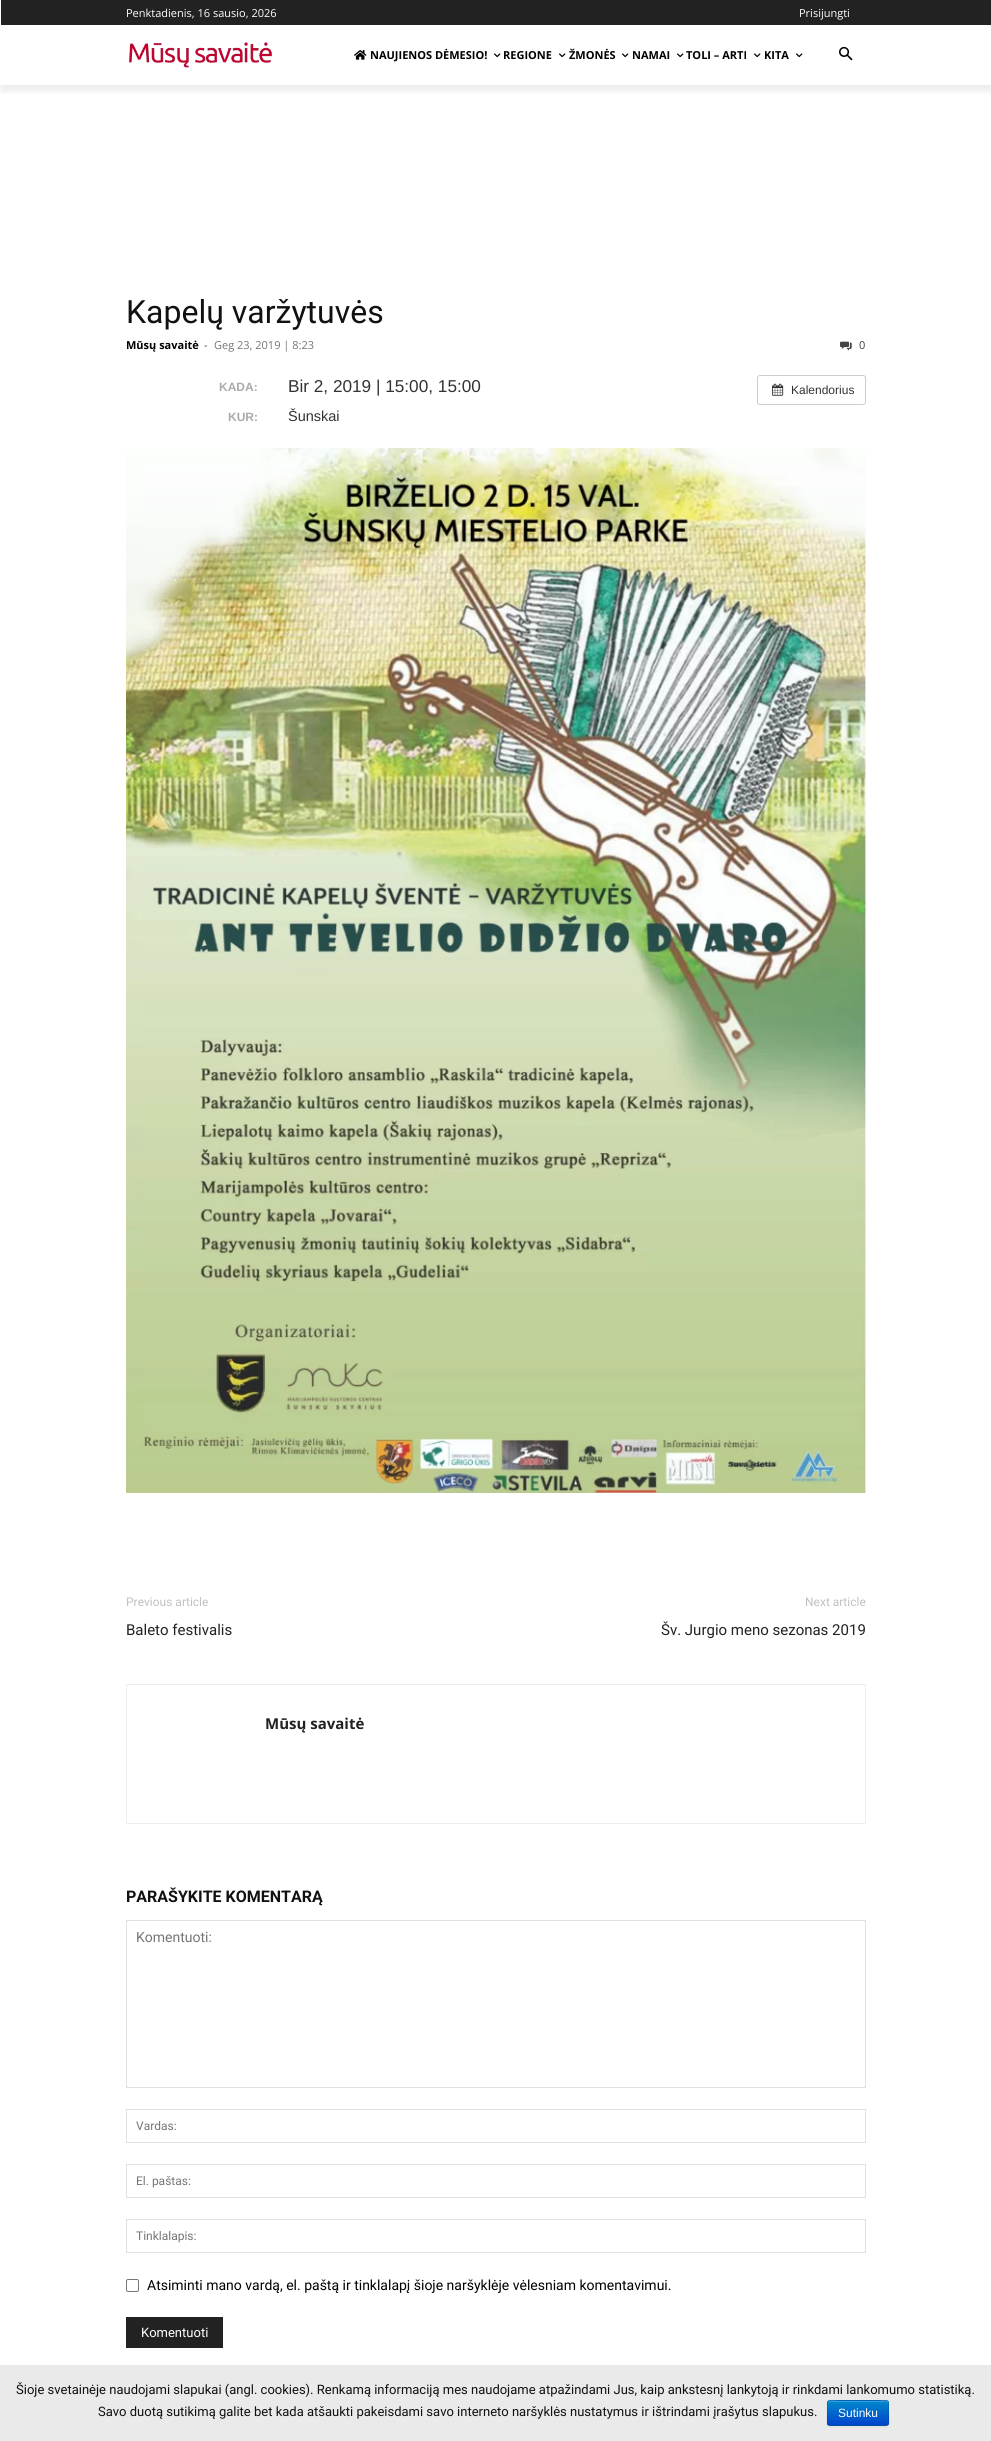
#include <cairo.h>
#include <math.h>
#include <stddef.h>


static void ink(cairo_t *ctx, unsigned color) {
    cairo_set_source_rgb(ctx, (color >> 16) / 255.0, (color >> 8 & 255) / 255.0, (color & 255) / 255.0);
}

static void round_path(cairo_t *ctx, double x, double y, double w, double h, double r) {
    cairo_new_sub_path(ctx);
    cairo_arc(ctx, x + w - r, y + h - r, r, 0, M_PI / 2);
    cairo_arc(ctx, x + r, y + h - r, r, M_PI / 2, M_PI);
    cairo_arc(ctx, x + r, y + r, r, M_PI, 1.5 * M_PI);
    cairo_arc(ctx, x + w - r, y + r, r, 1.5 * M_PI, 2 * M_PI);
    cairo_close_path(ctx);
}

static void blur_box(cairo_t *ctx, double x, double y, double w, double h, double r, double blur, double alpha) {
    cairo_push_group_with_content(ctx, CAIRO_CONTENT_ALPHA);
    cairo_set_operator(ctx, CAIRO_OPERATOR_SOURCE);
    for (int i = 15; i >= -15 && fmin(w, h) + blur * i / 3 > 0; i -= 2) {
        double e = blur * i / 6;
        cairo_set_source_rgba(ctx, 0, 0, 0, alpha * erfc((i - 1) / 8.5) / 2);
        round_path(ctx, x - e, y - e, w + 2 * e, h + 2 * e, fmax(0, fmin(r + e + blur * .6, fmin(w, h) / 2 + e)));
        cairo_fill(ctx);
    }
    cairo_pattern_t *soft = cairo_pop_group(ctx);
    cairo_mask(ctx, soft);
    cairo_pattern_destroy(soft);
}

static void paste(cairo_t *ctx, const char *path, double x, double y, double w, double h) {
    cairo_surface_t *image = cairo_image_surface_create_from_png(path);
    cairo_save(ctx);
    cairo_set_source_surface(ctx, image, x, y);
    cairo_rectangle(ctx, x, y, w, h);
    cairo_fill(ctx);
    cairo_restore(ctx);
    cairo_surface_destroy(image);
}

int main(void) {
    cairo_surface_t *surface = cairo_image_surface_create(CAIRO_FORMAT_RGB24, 991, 2441);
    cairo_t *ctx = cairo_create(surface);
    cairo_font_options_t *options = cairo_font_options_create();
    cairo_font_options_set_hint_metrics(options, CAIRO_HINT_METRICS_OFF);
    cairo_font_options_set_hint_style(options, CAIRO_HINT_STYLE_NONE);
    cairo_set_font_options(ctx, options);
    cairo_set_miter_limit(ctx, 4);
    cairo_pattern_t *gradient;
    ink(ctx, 0xFFFFFF);
    cairo_paint(ctx);
    ink(ctx, 0x222222);
    cairo_rectangle(ctx, 1, 0, 990, 25);
    cairo_fill(ctx);
    cairo_select_font_face(ctx, "Open Sans", CAIRO_FONT_SLANT_NORMAL, CAIRO_FONT_WEIGHT_NORMAL);
    cairo_set_font_size(ctx, 11);
    ink(ctx, 0xFFFFFF);
    cairo_move_to(ctx, 126, 17);
    cairo_show_text(ctx, "Penktadienis, 16 sausio, 2026");
    cairo_move_to(ctx, 799, 17);
    cairo_show_text(ctx, "Prisijungti");
    paste(ctx, "media/1.png", 129, 42, 143, 26);
    cairo_save(ctx);
    cairo_rectangle(ctx, 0, 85, 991, 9);
    cairo_clip(ctx);
    ink(ctx, 0x000000);
    blur_box(ctx, 1, 31, 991, 60, 0, 4, 0.08);
    cairo_restore(ctx);
    paste(ctx, "media/2.png", 354, 50, 13, 10);
    cairo_select_font_face(ctx, "Open Sans", CAIRO_FONT_SLANT_NORMAL, CAIRO_FONT_WEIGHT_BOLD);
    ink(ctx, 0x000000);
    cairo_move_to(ctx, 370, 59);
    cairo_show_text(ctx, "NAUJIENOS DĖMESIO!");
    paste(ctx, "media/3.png", 494, 53, 7, 5);
    cairo_move_to(ctx, 503, 59);
    cairo_show_text(ctx, "REGIONE");
    paste(ctx, "media/3.png", 559, 53, 7, 5);
    cairo_move_to(ctx, 569, 59);
    cairo_show_text(ctx, "ŽMONĖS");
    paste(ctx, "media/3.png", 622, 53, 7, 5);
    cairo_move_to(ctx, 632, 59);
    cairo_show_text(ctx, "NAMAI");
    paste(ctx, "media/3.png", 677, 53, 7, 5);
    cairo_move_to(ctx, 686, 59);
    cairo_show_text(ctx, "TOLI – ARTI");
    paste(ctx, "media/3.png", 754, 53, 7, 5);
    cairo_move_to(ctx, 764, 59);
    cairo_show_text(ctx, "KITA");
    paste(ctx, "media/3.png", 796, 53, 7, 5);
    paste(ctx, "media/4.png", 839, 46, 14, 15);
    cairo_select_font_face(ctx, "Roboto", CAIRO_FONT_SLANT_NORMAL, CAIRO_FONT_WEIGHT_NORMAL);
    cairo_set_font_size(ctx, 32);
    ink(ctx, 0x111111);
    cairo_move_to(ctx, 126, 323);
    cairo_show_text(ctx, "Kapelų varžytuvės");
    cairo_select_font_face(ctx, "Open Sans", CAIRO_FONT_SLANT_NORMAL, CAIRO_FONT_WEIGHT_BOLD);
    cairo_set_font_size(ctx, 11);
    ink(ctx, 0x000000);
    cairo_move_to(ctx, 126, 349);
    cairo_show_text(ctx, "Mūsų savaitė");
    cairo_select_font_face(ctx, "Open Sans", CAIRO_FONT_SLANT_NORMAL, CAIRO_FONT_WEIGHT_NORMAL);
    ink(ctx, 0x444444);
    cairo_move_to(ctx, 204, 349);
    cairo_show_text(ctx, "-");
    ink(ctx, 0x757575);
    cairo_move_to(ctx, 214, 349);
    cairo_show_text(ctx, "Geg 23, 2019 | 8:23");
    paste(ctx, "media/5.png", 840, 341, 12, 10);
    ink(ctx, 0x444444);
    cairo_move_to(ctx, 859, 349);
    cairo_show_text(ctx, "0");
    cairo_select_font_face(ctx, "Liberation Sans", CAIRO_FONT_SLANT_NORMAL, CAIRO_FONT_WEIGHT_BOLD);
    cairo_set_font_size(ctx, 12);
    ink(ctx, 0xAAAAAA);
    cairo_move_to(ctx, 219, 391);
    cairo_show_text(ctx, "KADA:");
    cairo_select_font_face(ctx, "Liberation Sans", CAIRO_FONT_SLANT_NORMAL, CAIRO_FONT_WEIGHT_NORMAL);
    cairo_set_font_size(ctx, 17.2);
    ink(ctx, 0x333333);
    cairo_move_to(ctx, 288, 392);
    cairo_show_text(ctx, "Bir 2, 2019 | 15:00, 15:00");
    cairo_select_font_face(ctx, "Liberation Sans", CAIRO_FONT_SLANT_NORMAL, CAIRO_FONT_WEIGHT_BOLD);
    cairo_set_font_size(ctx, 12);
    ink(ctx, 0xAAAAAA);
    cairo_move_to(ctx, 228, 421);
    cairo_show_text(ctx, "KUR:");
    cairo_select_font_face(ctx, "Liberation Sans", CAIRO_FONT_SLANT_NORMAL, CAIRO_FONT_WEIGHT_NORMAL);
    cairo_set_font_size(ctx, 14.5);
    ink(ctx, 0x333333);
    cairo_move_to(ctx, 288, 421);
    cairo_show_text(ctx, "Šunskai");
    round_path(ctx, 757.5, 375.5, 108, 29, 2.5);
    ink(ctx, 0xCCCCCC);
    cairo_set_line_width(ctx, 1);
    cairo_stroke(ctx);
    paste(ctx, "media/6.png", 772, 383, 12, 13);
    cairo_set_font_size(ctx, 12);
    ink(ctx, 0x333333);
    cairo_move_to(ctx, 791, 394);
    cairo_show_text(ctx, "Kalendorius");
    paste(ctx, "media/7.png", 126, 448, 740, 1045);
    cairo_select_font_face(ctx, "Roboto", CAIRO_FONT_SLANT_NORMAL, CAIRO_FONT_WEIGHT_NORMAL);
    ink(ctx, 0xC1C1C1);
    cairo_move_to(ctx, 126, 1606);
    cairo_show_text(ctx, "Previous article");
    cairo_set_font_size(ctx, 15);
    ink(ctx, 0x222222);
    cairo_move_to(ctx, 126, 1635);
    cairo_show_text(ctx, "Baleto festivalis");
    cairo_set_font_size(ctx, 12);
    ink(ctx, 0xC1C1C1);
    cairo_move_to(ctx, 805, 1606);
    cairo_show_text(ctx, "Next article");
    cairo_set_font_size(ctx, 15);
    ink(ctx, 0x222222);
    cairo_move_to(ctx, 661, 1635);
    cairo_show_text(ctx, "Šv. Jurgio meno sezonas 2019");
    cairo_rectangle(ctx, 126.5, 1684.5, 739, 139);
    ink(ctx, 0xEDEDED);
    cairo_stroke(ctx);
    cairo_select_font_face(ctx, "Open Sans", CAIRO_FONT_SLANT_NORMAL, CAIRO_FONT_WEIGHT_BOLD);
    ink(ctx, 0x222222);
    cairo_move_to(ctx, 265, 1729);
    cairo_show_text(ctx, "Mūsų savaitė");
    cairo_select_font_face(ctx, "Roboto", CAIRO_FONT_SLANT_NORMAL, CAIRO_FONT_WEIGHT_BOLD);
    cairo_set_font_size(ctx, 16);
    ink(ctx, 0x111111);
    cairo_move_to(ctx, 126, 1902);
    cairo_show_text(ctx, "PARAŠYKITE KOMENTARĄ");
    cairo_rectangle(ctx, 126.5, 1920.5, 739, 167);
    ink(ctx, 0xE1E1E1);
    cairo_stroke(ctx);
    cairo_select_font_face(ctx, "Roboto", CAIRO_FONT_SLANT_NORMAL, CAIRO_FONT_WEIGHT_NORMAL);
    cairo_set_font_size(ctx, 14);
    ink(ctx, 0x757575);
    cairo_move_to(ctx, 136, 1942);
    cairo_show_text(ctx, "Komentuoti:");
    cairo_rectangle(ctx, 126.5, 2109.5, 739, 33);
    ink(ctx, 0xE1E1E1);
    cairo_stroke(ctx);
    cairo_set_font_size(ctx, 12);
    ink(ctx, 0x757575);
    cairo_move_to(ctx, 136, 2130);
    cairo_show_text(ctx, "Vardas:");
    cairo_rectangle(ctx, 126.5, 2164.5, 739, 33);
    ink(ctx, 0xE1E1E1);
    cairo_stroke(ctx);
    ink(ctx, 0x757575);
    cairo_move_to(ctx, 136, 2185);
    cairo_show_text(ctx, "El. paštas:");
    cairo_rectangle(ctx, 126.5, 2219.5, 739, 33);
    ink(ctx, 0xE1E1E1);
    cairo_stroke(ctx);
    ink(ctx, 0x757575);
    cairo_move_to(ctx, 136, 2240);
    cairo_show_text(ctx, "Tinklalapis:");
    round_path(ctx, 126.5, 2279.5, 12, 12, 1.5);
    ink(ctx, 0x767676);
    cairo_stroke(ctx);
    cairo_set_font_size(ctx, 14);
    ink(ctx, 0x000000);
    cairo_move_to(ctx, 147, 2290);
    cairo_show_text(ctx, "Atsiminti mano vardą, el. paštą ir tinklalapį šioje naršyklėje vėlesniam komentavimui.");
    ink(ctx, 0x222222);
    cairo_rectangle(ctx, 126, 2317, 97, 31);
    cairo_fill(ctx);
    cairo_set_font_size(ctx, 13);
    ink(ctx, 0xFFFFFF);
    cairo_move_to(ctx, 141, 2337);
    cairo_show_text(ctx, "Komentuoti");
    ink(ctx, 0xEAEAEA);
    cairo_rectangle(ctx, 0, 2365, 991, 76);
    cairo_fill(ctx);
    ink(ctx, 0x111111);
    cairo_move_to(ctx, 16, 2394);
    cairo_show_text(ctx, "Šioje svetainėje naudojami slapukai (angl. cookies). Renkamą informaciją mes naudojame atpažindami Jus, kaip ankstesnį lankytoją ir rinkdami lankomumo statistiką.");
    cairo_move_to(ctx, 98, 2416);
    cairo_show_text(ctx, "Savo duotą sutikimą galite bet kada atšaukti pakeisdami savo interneto naršyklės nustatymus ir ištrindami įrašytus slapukus.");
    ink(ctx, 0x000000);
    blur_box(ctx, 827, 2401, 62, 26, 3, 1, 0.05);
    ink(ctx, 0x006DCC);
    round_path(ctx, 827, 2400, 62, 26, 3);
    cairo_fill(ctx);
    cairo_save(ctx);
    round_path(ctx, 827, 2400, 62, 26, 3);
    cairo_clip(ctx);
    gradient = cairo_pattern_create_linear(858, 2401, 858, 2425);
    cairo_pattern_add_color_stop_rgba(gradient, 0, 0, 0.533, 0.8, 1);
    cairo_pattern_add_color_stop_rgba(gradient, 1, 0, 0.267, 0.8, 1);
    cairo_set_source(ctx, gradient);
    cairo_pattern_destroy(gradient);
    cairo_rectangle(ctx, 827, 2401, 62, 24);
    cairo_fill(ctx);
    cairo_restore(ctx);
    cairo_set_source_rgba(ctx, 1, 1, 1, 0.2);
    cairo_new_path(ctx);
    cairo_move_to(ctx, 830, 2402);
    cairo_line_to(ctx, 886, 2402);
    cairo_curve_to(ctx, 887, 2402, 888, 2403, 888, 2404);
    cairo_curve_to(ctx, 888, 2398, 880, 2401, 877, 2401);
    cairo_line_to(ctx, 839, 2401);
    cairo_curve_to(ctx, 836, 2401, 828, 2398, 828, 2404);
    cairo_curve_to(ctx, 828, 2403, 829, 2402, 830, 2402);
    cairo_close_path(ctx);
    cairo_fill(ctx);
    cairo_new_path(ctx);
    cairo_move_to(ctx, 888, 2425);
    cairo_line_to(ctx, 886, 2425.5);
    cairo_line_to(ctx, 830, 2425.5);
    cairo_line_to(ctx, 828, 2425);
    cairo_set_source_rgba(ctx, 0, 0, 0, 0.25);
    cairo_stroke(ctx);
    cairo_new_path(ctx);
    cairo_move_to(ctx, 828, 2425);
    cairo_curve_to(ctx, 826.5, 2423, 827.5, 2415.5, 827.5, 2413);
    cairo_curve_to(ctx, 827.5, 2398.5, 825, 2400.5, 839.5, 2400.5);
    cairo_line_to(ctx, 876.5, 2400.5);
    cairo_curve_to(ctx, 891, 2400.5, 888.5, 2398.5, 888.5, 2413);
    cairo_curve_to(ctx, 888.5, 2415.5, 889.5, 2423, 888, 2425);
    cairo_set_source_rgba(ctx, 0, 0, 0, 0.1);
    cairo_stroke(ctx);
    cairo_select_font_face(ctx, "Liberation Sans", CAIRO_FONT_SLANT_NORMAL, CAIRO_FONT_WEIGHT_NORMAL);
    cairo_set_font_size(ctx, 12);
    ink(ctx, 0xFFFFFF);
    cairo_move_to(ctx, 838, 2417);
    cairo_show_text(ctx, "Sutinku");
    cairo_surface_write_to_png(surface, "image.png");
    cairo_font_options_destroy(options);
    cairo_destroy(ctx);
    cairo_surface_destroy(surface);
    return 0;
}
